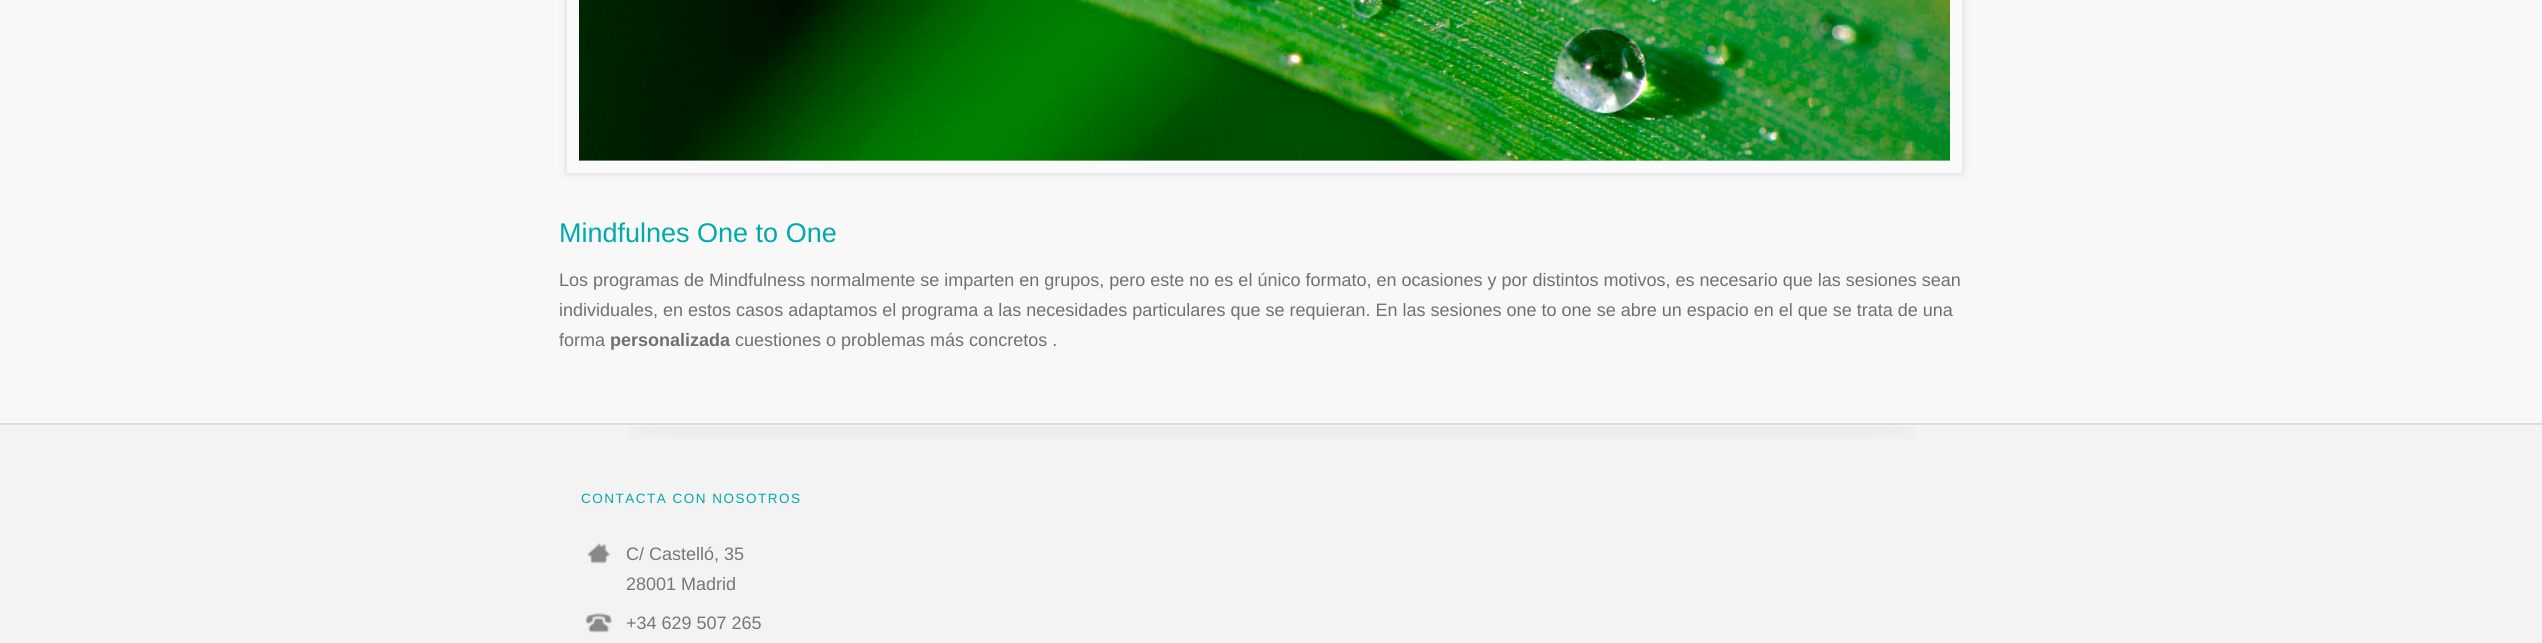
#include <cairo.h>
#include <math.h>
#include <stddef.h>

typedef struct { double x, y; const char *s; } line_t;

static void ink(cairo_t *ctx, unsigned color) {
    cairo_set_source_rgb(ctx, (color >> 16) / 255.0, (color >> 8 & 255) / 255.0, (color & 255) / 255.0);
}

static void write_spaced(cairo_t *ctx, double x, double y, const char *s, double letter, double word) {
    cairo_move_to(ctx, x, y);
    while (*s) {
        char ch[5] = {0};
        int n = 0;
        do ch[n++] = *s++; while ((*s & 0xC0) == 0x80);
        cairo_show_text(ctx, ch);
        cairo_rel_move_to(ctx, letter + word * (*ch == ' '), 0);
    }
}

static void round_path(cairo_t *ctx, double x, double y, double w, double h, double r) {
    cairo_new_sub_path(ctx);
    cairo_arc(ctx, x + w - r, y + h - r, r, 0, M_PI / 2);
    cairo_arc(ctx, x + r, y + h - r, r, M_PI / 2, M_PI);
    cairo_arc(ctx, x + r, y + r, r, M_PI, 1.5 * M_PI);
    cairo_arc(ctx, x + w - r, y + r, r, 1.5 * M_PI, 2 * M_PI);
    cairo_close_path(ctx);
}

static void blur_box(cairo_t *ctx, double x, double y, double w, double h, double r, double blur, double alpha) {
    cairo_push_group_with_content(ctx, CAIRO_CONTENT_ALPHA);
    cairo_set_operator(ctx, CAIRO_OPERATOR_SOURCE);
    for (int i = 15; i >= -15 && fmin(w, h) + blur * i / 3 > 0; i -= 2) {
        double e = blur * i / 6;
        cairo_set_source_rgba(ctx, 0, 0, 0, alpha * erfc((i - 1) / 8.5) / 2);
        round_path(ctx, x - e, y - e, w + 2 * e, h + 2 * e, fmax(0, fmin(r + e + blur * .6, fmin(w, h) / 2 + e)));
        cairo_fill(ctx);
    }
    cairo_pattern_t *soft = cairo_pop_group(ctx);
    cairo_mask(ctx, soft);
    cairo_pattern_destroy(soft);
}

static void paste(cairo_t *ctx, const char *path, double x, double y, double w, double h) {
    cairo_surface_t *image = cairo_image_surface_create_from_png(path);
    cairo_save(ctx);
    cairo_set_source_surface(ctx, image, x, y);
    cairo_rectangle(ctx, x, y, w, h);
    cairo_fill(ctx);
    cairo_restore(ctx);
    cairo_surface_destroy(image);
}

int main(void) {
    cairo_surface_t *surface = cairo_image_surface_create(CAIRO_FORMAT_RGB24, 2542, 643);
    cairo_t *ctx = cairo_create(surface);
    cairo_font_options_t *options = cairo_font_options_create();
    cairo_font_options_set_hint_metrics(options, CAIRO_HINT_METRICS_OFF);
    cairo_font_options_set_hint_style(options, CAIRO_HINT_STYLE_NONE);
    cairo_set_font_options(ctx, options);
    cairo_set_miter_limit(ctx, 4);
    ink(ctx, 0xF8F8F8);
    cairo_paint(ctx);
    ink(ctx, 0x333333);
    blur_box(ctx, 567, -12, 1395, 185, 0, 4, 0.2);
    cairo_rectangle(ctx, 573, -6, 1383, 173);
    ink(ctx, 0xFAFAFA);
    cairo_set_line_width(ctx, 12);
    cairo_stroke(ctx);
    paste(ctx, "media/1.png", 579, 0, 1371, 161);
    cairo_select_font_face(ctx, "Liberation Sans", CAIRO_FONT_SLANT_NORMAL, CAIRO_FONT_WEIGHT_NORMAL);
    cairo_set_font_size(ctx, 27);
    ink(ctx, 0x01A9AA);
    cairo_move_to(ctx, 559, 242);
    cairo_show_text(ctx, "Mindfulnes One to One");
    cairo_set_font_size(ctx, 18);
    ink(ctx, 0x707070);
    {
        static const line_t items[] = {
            {559, 286, "Los programas de Mindfulness normalmente se imparten en grupos, pero este no es el único formato, en ocasiones y por distintos motivos, es necesario que las sesiones sean"},
            {559, 316, "individuales, en estos casos adaptamos el programa a las necesidades particulares que se requieran. En las sesiones one to one se abre un espacio en el que se trata de una"},
            {559, 346, "forma"},
        };
        for (size_t i = 0; i < sizeof items / sizeof *items; i++) {
            cairo_move_to(ctx, items[i].x, items[i].y);
            cairo_show_text(ctx, items[i].s);
        }
    }
    cairo_select_font_face(ctx, "Liberation Sans", CAIRO_FONT_SLANT_NORMAL, CAIRO_FONT_WEIGHT_BOLD);
    cairo_move_to(ctx, 610, 346);
    cairo_show_text(ctx, "personalizada");
    cairo_select_font_face(ctx, "Liberation Sans", CAIRO_FONT_SLANT_NORMAL, CAIRO_FONT_WEIGHT_NORMAL);
    cairo_move_to(ctx, 735, 346);
    cairo_show_text(ctx, "cuestiones o problemas más concretos .");
    ink(ctx, 0xF3F3F3);
    cairo_rectangle(ctx, 0, 425, 2542, 218);
    cairo_fill(ctx);
    paste(ctx, "media/2.png", 629, 427, 1286, 12);
    ink(ctx, 0xDCDCDC);
    cairo_rectangle(ctx, 0, 423, 2542, 2);
    cairo_fill(ctx);
    cairo_set_font_size(ctx, 13.5);
    ink(ctx, 0x01A9AA);
    write_spaced(ctx, 581, 503, "CONTACTA CON NOSOTROS", 1.5, 0);
    paste(ctx, "media/3.png", 587, 543, 24, 21);
    cairo_set_font_size(ctx, 18);
    ink(ctx, 0x777777);
    cairo_move_to(ctx, 626, 560);
    cairo_show_text(ctx, "C/ Castelló, 35");
    cairo_move_to(ctx, 626, 590);
    cairo_show_text(ctx, "28001 Madrid");
    paste(ctx, "media/4.png", 585, 613, 28, 20);
    cairo_move_to(ctx, 626, 629);
    cairo_show_text(ctx, "+34 629 507 265");
    cairo_surface_write_to_png(surface, "image.png");
    cairo_font_options_destroy(options);
    cairo_destroy(ctx);
    cairo_surface_destroy(surface);
    return 0;
}
